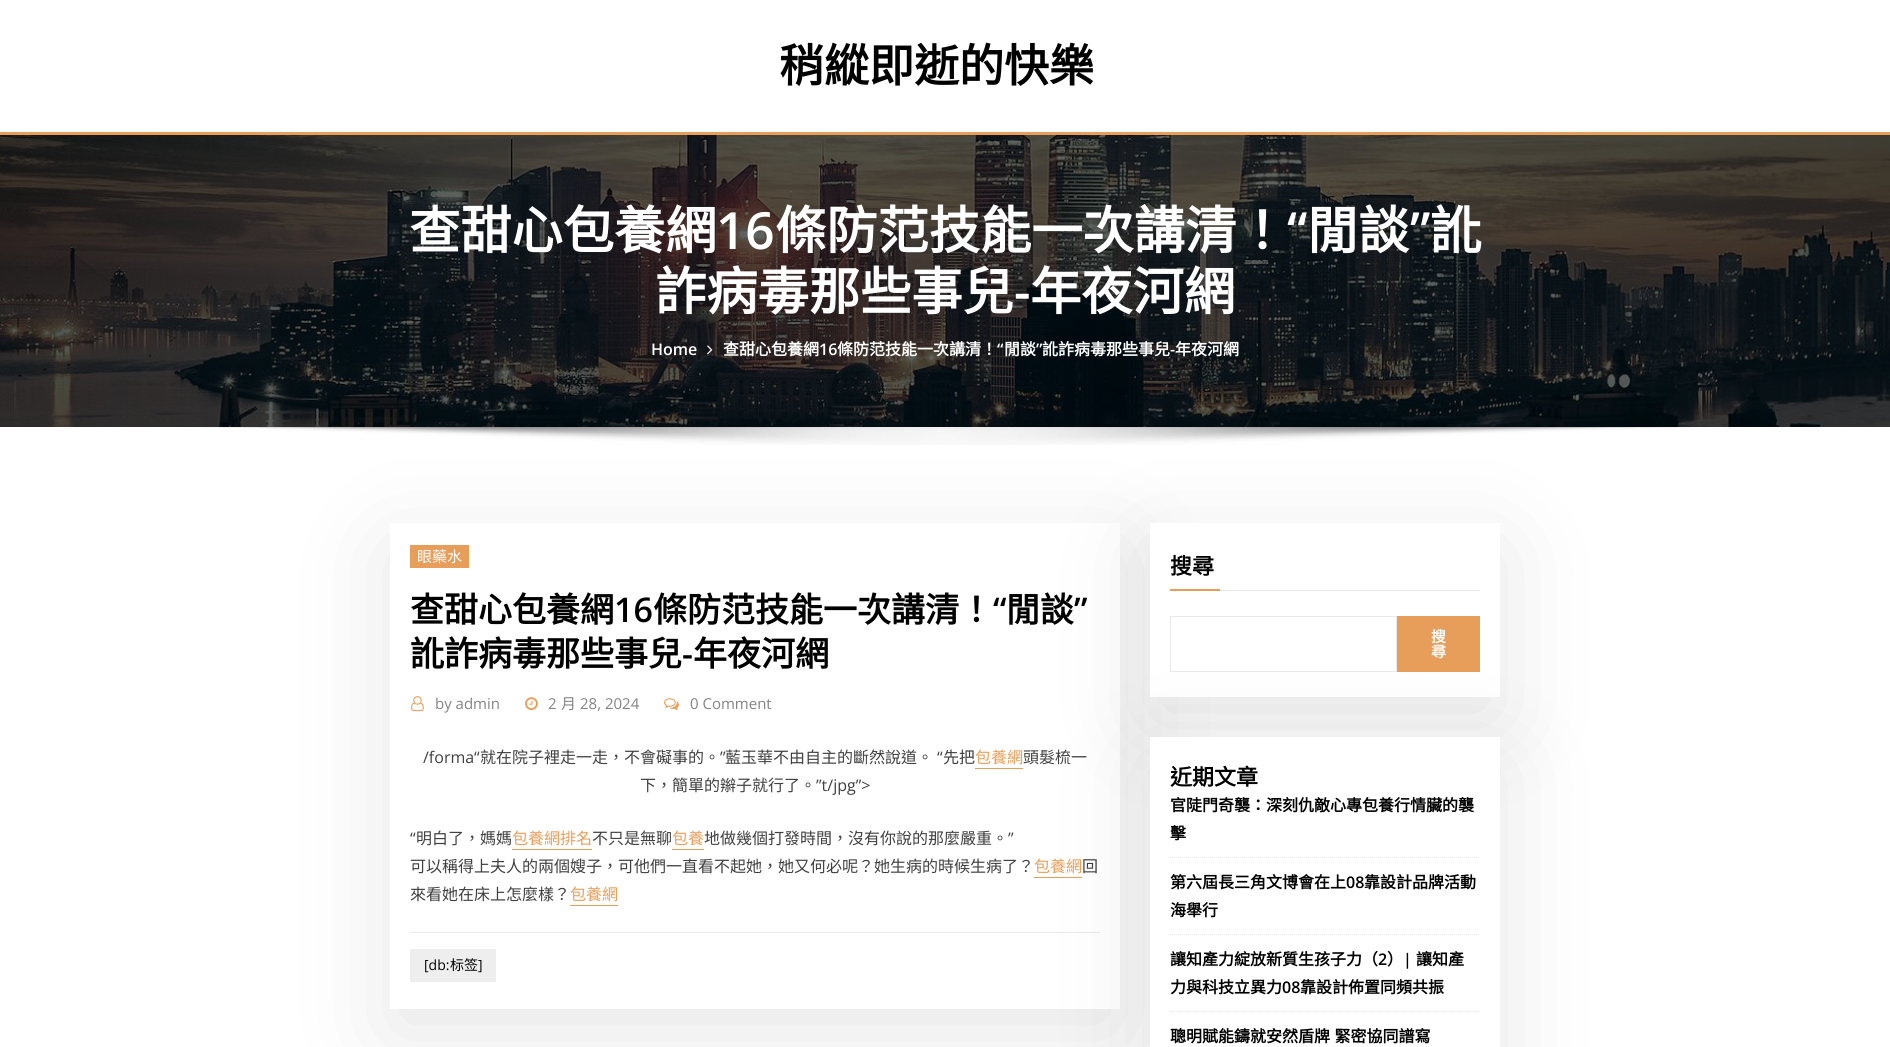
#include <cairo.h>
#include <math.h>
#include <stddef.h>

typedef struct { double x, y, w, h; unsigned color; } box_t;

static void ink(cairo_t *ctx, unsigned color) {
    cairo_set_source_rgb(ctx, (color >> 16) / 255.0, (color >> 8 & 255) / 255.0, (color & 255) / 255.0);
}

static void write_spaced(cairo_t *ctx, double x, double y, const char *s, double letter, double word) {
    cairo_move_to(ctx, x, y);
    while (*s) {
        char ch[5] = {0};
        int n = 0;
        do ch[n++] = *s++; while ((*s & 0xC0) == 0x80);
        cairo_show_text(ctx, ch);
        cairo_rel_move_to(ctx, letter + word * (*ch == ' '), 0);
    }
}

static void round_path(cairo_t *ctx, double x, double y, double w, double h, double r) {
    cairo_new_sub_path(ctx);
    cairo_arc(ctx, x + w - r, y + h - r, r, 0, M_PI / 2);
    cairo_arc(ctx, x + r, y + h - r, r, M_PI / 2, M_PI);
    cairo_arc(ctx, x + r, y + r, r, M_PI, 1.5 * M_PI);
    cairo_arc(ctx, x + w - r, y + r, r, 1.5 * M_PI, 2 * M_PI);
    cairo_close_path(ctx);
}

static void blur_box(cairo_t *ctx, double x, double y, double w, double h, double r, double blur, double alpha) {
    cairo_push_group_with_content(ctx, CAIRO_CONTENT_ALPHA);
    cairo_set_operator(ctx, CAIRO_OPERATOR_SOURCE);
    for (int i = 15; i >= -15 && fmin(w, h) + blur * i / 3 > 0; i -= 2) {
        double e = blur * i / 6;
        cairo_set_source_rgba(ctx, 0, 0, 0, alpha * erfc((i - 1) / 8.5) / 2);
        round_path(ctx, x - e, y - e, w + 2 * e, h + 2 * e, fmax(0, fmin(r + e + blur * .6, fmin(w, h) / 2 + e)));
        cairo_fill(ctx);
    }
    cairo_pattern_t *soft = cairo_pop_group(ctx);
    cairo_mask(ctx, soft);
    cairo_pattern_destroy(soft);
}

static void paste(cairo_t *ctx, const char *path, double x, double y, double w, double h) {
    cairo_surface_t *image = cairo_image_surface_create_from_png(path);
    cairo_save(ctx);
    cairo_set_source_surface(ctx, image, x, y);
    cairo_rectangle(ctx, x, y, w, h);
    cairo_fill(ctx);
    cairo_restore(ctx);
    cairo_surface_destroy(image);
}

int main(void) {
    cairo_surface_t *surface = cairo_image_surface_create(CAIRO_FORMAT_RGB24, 1890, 1047);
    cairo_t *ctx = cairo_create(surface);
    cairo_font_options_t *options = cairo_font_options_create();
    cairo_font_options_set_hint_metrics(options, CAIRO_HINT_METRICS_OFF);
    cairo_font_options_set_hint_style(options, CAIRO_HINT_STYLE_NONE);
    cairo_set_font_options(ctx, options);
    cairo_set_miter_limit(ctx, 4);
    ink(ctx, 0xFFFFFF);
    cairo_paint(ctx);
    cairo_select_font_face(ctx, "Noto Sans CJK TC", CAIRO_FONT_SLANT_NORMAL, CAIRO_FONT_WEIGHT_BOLD);
    cairo_set_font_size(ctx, 45);
    ink(ctx, 0x000000);
    cairo_move_to(ctx, 779, 82);
    cairo_show_text(ctx, "稍縱即逝的快樂");
    paste(ctx, "media/1.png", 0, 135, 1890, 292);
    ink(ctx, 0x000000);
    blur_box(ctx, 0, 133, 1890, 3, 0, 1, 0.05);
    ink(ctx, 0xE89E5B);
    cairo_rectangle(ctx, 0, 132, 1890, 3);
    cairo_fill(ctx);
    cairo_set_font_size(ctx, 51.25);
    ink(ctx, 0xFFFFFF);
    cairo_move_to(ctx, 409, 249);
    cairo_show_text(ctx, "查甜心包養網");
    cairo_select_font_face(ctx, "Open Sans SemiBold", CAIRO_FONT_SLANT_NORMAL, CAIRO_FONT_WEIGHT_NORMAL);
    cairo_move_to(ctx, 716, 249);
    cairo_show_text(ctx, "16");
    cairo_select_font_face(ctx, "Noto Sans CJK TC", CAIRO_FONT_SLANT_NORMAL, CAIRO_FONT_WEIGHT_BOLD);
    cairo_move_to(ctx, 775, 249);
    cairo_show_text(ctx, "條防范技能一次講清！");
    cairo_select_font_face(ctx, "Open Sans SemiBold", CAIRO_FONT_SLANT_NORMAL, CAIRO_FONT_WEIGHT_NORMAL);
    cairo_move_to(ctx, 1287, 249);
    cairo_show_text(ctx, "“");
    cairo_select_font_face(ctx, "Noto Sans CJK TC", CAIRO_FONT_SLANT_NORMAL, CAIRO_FONT_WEIGHT_BOLD);
    cairo_move_to(ctx, 1307, 249);
    cairo_show_text(ctx, "閒談");
    cairo_select_font_face(ctx, "Open Sans SemiBold", CAIRO_FONT_SLANT_NORMAL, CAIRO_FONT_WEIGHT_NORMAL);
    cairo_move_to(ctx, 1410, 249);
    cairo_show_text(ctx, "”");
    cairo_select_font_face(ctx, "Noto Sans CJK TC", CAIRO_FONT_SLANT_NORMAL, CAIRO_FONT_WEIGHT_BOLD);
    cairo_move_to(ctx, 1430, 249);
    cairo_show_text(ctx, "訛");
    cairo_move_to(ctx, 655, 310);
    cairo_show_text(ctx, "詐病毒那些事兒");
    cairo_select_font_face(ctx, "Open Sans SemiBold", CAIRO_FONT_SLANT_NORMAL, CAIRO_FONT_WEIGHT_NORMAL);
    cairo_move_to(ctx, 1014, 310);
    cairo_show_text(ctx, "-");
    cairo_select_font_face(ctx, "Noto Sans CJK TC", CAIRO_FONT_SLANT_NORMAL, CAIRO_FONT_WEIGHT_BOLD);
    cairo_move_to(ctx, 1030, 310);
    cairo_show_text(ctx, "年夜河網");
    cairo_select_font_face(ctx, "Open Sans SemiBold", CAIRO_FONT_SLANT_NORMAL, CAIRO_FONT_WEIGHT_NORMAL);
    cairo_set_font_size(ctx, 16);
    cairo_move_to(ctx, 651, 355);
    cairo_show_text(ctx, "Home");
    paste(ctx, "media/2.png", 707, 345, 6, 10);
    cairo_select_font_face(ctx, "Noto Sans CJK TC", CAIRO_FONT_SLANT_NORMAL, CAIRO_FONT_WEIGHT_BOLD);
    cairo_move_to(ctx, 723, 355);
    cairo_show_text(ctx, "查甜心包養網");
    cairo_select_font_face(ctx, "Open Sans SemiBold", CAIRO_FONT_SLANT_NORMAL, CAIRO_FONT_WEIGHT_NORMAL);
    cairo_move_to(ctx, 819, 355);
    cairo_show_text(ctx, "16");
    cairo_select_font_face(ctx, "Noto Sans CJK TC", CAIRO_FONT_SLANT_NORMAL, CAIRO_FONT_WEIGHT_BOLD);
    cairo_move_to(ctx, 837, 355);
    cairo_show_text(ctx, "條防范技能一次講清！");
    cairo_select_font_face(ctx, "Open Sans SemiBold", CAIRO_FONT_SLANT_NORMAL, CAIRO_FONT_WEIGHT_NORMAL);
    cairo_move_to(ctx, 997, 355);
    cairo_show_text(ctx, "“");
    cairo_select_font_face(ctx, "Noto Sans CJK TC", CAIRO_FONT_SLANT_NORMAL, CAIRO_FONT_WEIGHT_BOLD);
    cairo_move_to(ctx, 1004, 355);
    cairo_show_text(ctx, "閒談");
    cairo_select_font_face(ctx, "Open Sans SemiBold", CAIRO_FONT_SLANT_NORMAL, CAIRO_FONT_WEIGHT_NORMAL);
    cairo_move_to(ctx, 1036, 355);
    cairo_show_text(ctx, "”");
    cairo_select_font_face(ctx, "Noto Sans CJK TC", CAIRO_FONT_SLANT_NORMAL, CAIRO_FONT_WEIGHT_BOLD);
    cairo_move_to(ctx, 1042, 355);
    cairo_show_text(ctx, "訛詐病毒那些事兒");
    cairo_select_font_face(ctx, "Open Sans SemiBold", CAIRO_FONT_SLANT_NORMAL, CAIRO_FONT_WEIGHT_NORMAL);
    cairo_move_to(ctx, 1170, 355);
    cairo_show_text(ctx, "-");
    cairo_select_font_face(ctx, "Noto Sans CJK TC", CAIRO_FONT_SLANT_NORMAL, CAIRO_FONT_WEIGHT_BOLD);
    cairo_move_to(ctx, 1175, 355);
    cairo_show_text(ctx, "年夜河網");
    cairo_save(ctx);
    cairo_set_fill_rule(ctx, CAIRO_FILL_RULE_EVEN_ODD);
    cairo_new_path(ctx);
    cairo_move_to(ctx, 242, 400);
    cairo_line_to(ctx, 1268, 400);
    cairo_line_to(ctx, 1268, 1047);
    cairo_line_to(ctx, 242, 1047);
    cairo_close_path(ctx);
    cairo_move_to(ctx, 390, 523);
    cairo_line_to(ctx, 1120, 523);
    cairo_line_to(ctx, 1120, 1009);
    cairo_line_to(ctx, 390, 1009);
    cairo_close_path(ctx);
    cairo_clip(ctx);
    ink(ctx, 0x000000);
    blur_box(ctx, 390, 548, 730, 486, 0, 49, 0.1);
    cairo_restore(ctx);
    ink(ctx, 0xE89E5B);
    cairo_rectangle(ctx, 975, 768, 48, 1);
    cairo_fill(ctx);
    ink(ctx, 0x000000);
    blur_box(ctx, 1150, 548, 350, 174, 0, 49, 0.1);
    paste(ctx, "media/3.png", 193, 427, 1505, 18);
    ink(ctx, 0xE89E5B);
    cairo_rectangle(ctx, 410, 545, 59, 23);
    cairo_fill(ctx);
    cairo_select_font_face(ctx, "Noto Sans CJK TC", CAIRO_FONT_SLANT_NORMAL, CAIRO_FONT_WEIGHT_NORMAL);
    cairo_set_font_size(ctx, 15);
    ink(ctx, 0xFFFFFF);
    cairo_move_to(ctx, 417, 562);
    cairo_show_text(ctx, "眼藥水");
    cairo_select_font_face(ctx, "Noto Sans CJK TC", CAIRO_FONT_SLANT_NORMAL, CAIRO_FONT_WEIGHT_BOLD);
    cairo_set_font_size(ctx, 34);
    ink(ctx, 0x000000);
    cairo_move_to(ctx, 410, 622);
    cairo_show_text(ctx, "查甜心包養網");
    cairo_select_font_face(ctx, "Open Sans SemiBold", CAIRO_FONT_SLANT_NORMAL, CAIRO_FONT_WEIGHT_NORMAL);
    cairo_move_to(ctx, 614, 622);
    cairo_show_text(ctx, "16");
    cairo_select_font_face(ctx, "Noto Sans CJK TC", CAIRO_FONT_SLANT_NORMAL, CAIRO_FONT_WEIGHT_BOLD);
    cairo_move_to(ctx, 653, 622);
    cairo_show_text(ctx, "條防范技能一次講清！");
    cairo_select_font_face(ctx, "Open Sans SemiBold", CAIRO_FONT_SLANT_NORMAL, CAIRO_FONT_WEIGHT_NORMAL);
    cairo_move_to(ctx, 993, 622);
    cairo_show_text(ctx, "“");
    cairo_select_font_face(ctx, "Noto Sans CJK TC", CAIRO_FONT_SLANT_NORMAL, CAIRO_FONT_WEIGHT_BOLD);
    cairo_move_to(ctx, 1006, 622);
    cairo_show_text(ctx, "閒談");
    cairo_select_font_face(ctx, "Open Sans SemiBold", CAIRO_FONT_SLANT_NORMAL, CAIRO_FONT_WEIGHT_NORMAL);
    cairo_move_to(ctx, 1074, 622);
    cairo_show_text(ctx, "”");
    cairo_select_font_face(ctx, "Noto Sans CJK TC", CAIRO_FONT_SLANT_NORMAL, CAIRO_FONT_WEIGHT_BOLD);
    cairo_move_to(ctx, 410, 666);
    cairo_show_text(ctx, "訛詐病毒那些事兒");
    cairo_select_font_face(ctx, "Open Sans SemiBold", CAIRO_FONT_SLANT_NORMAL, CAIRO_FONT_WEIGHT_NORMAL);
    cairo_move_to(ctx, 682, 666);
    cairo_show_text(ctx, "-");
    cairo_select_font_face(ctx, "Noto Sans CJK TC", CAIRO_FONT_SLANT_NORMAL, CAIRO_FONT_WEIGHT_BOLD);
    cairo_move_to(ctx, 693, 666);
    cairo_show_text(ctx, "年夜河網");
    paste(ctx, "media/4.png", 411, 696, 13, 16);
    cairo_select_font_face(ctx, "Open Sans", CAIRO_FONT_SLANT_NORMAL, CAIRO_FONT_WEIGHT_NORMAL);
    cairo_set_font_size(ctx, 15);
    ink(ctx, 0x838383);
    cairo_move_to(ctx, 435, 709);
    cairo_show_text(ctx, "by admin");
    paste(ctx, "media/5.png", 525, 697, 13, 14);
    cairo_move_to(ctx, 548, 709);
    cairo_show_text(ctx, "2");
    cairo_select_font_face(ctx, "Noto Sans CJK TC", CAIRO_FONT_SLANT_NORMAL, CAIRO_FONT_WEIGHT_NORMAL);
    cairo_move_to(ctx, 561, 709);
    cairo_show_text(ctx, "月");
    cairo_select_font_face(ctx, "Open Sans", CAIRO_FONT_SLANT_NORMAL, CAIRO_FONT_WEIGHT_NORMAL);
    cairo_move_to(ctx, 580, 709);
    cairo_show_text(ctx, "28, 2024");
    paste(ctx, "media/6.png", 664, 698, 15, 12);
    cairo_move_to(ctx, 690, 709);
    cairo_show_text(ctx, "0 Comment");
    cairo_set_font_size(ctx, 16);
    ink(ctx, 0x404040);
    cairo_move_to(ctx, 423, 763);
    cairo_show_text(ctx, "/forma“");
    cairo_select_font_face(ctx, "Noto Sans CJK TC", CAIRO_FONT_SLANT_NORMAL, CAIRO_FONT_WEIGHT_NORMAL);
    cairo_move_to(ctx, 480, 763);
    cairo_show_text(ctx, "就在院子裡走一走，不會礙事的。");
    cairo_select_font_face(ctx, "Open Sans", CAIRO_FONT_SLANT_NORMAL, CAIRO_FONT_WEIGHT_NORMAL);
    cairo_move_to(ctx, 720, 763);
    cairo_show_text(ctx, "”");
    cairo_select_font_face(ctx, "Noto Sans CJK TC", CAIRO_FONT_SLANT_NORMAL, CAIRO_FONT_WEIGHT_NORMAL);
    cairo_move_to(ctx, 725, 763);
    cairo_show_text(ctx, "藍玉華不由自主的斷然說道。");
    cairo_select_font_face(ctx, "Open Sans", CAIRO_FONT_SLANT_NORMAL, CAIRO_FONT_WEIGHT_NORMAL);
    cairo_move_to(ctx, 937, 763);
    cairo_show_text(ctx, "“");
    cairo_select_font_face(ctx, "Noto Sans CJK TC", CAIRO_FONT_SLANT_NORMAL, CAIRO_FONT_WEIGHT_NORMAL);
    cairo_move_to(ctx, 943, 763);
    cairo_show_text(ctx, "先把");
    ink(ctx, 0xE89E5B);
    cairo_move_to(ctx, 975, 763);
    cairo_show_text(ctx, "包養網");
    ink(ctx, 0x404040);
    cairo_move_to(ctx, 1023, 763);
    cairo_show_text(ctx, "頭髮梳一");
    cairo_move_to(ctx, 640, 791);
    cairo_show_text(ctx, "下，簡單的辮子就行了。");
    cairo_select_font_face(ctx, "Open Sans", CAIRO_FONT_SLANT_NORMAL, CAIRO_FONT_WEIGHT_NORMAL);
    cairo_move_to(ctx, 816, 791);
    cairo_show_text(ctx, "”t/jpg”>");
    cairo_move_to(ctx, 410, 844);
    cairo_show_text(ctx, "“");
    cairo_select_font_face(ctx, "Noto Sans CJK TC", CAIRO_FONT_SLANT_NORMAL, CAIRO_FONT_WEIGHT_NORMAL);
    cairo_move_to(ctx, 416, 844);
    cairo_show_text(ctx, "明白了，媽媽");
    ink(ctx, 0xE89E5B);
    cairo_move_to(ctx, 512, 844);
    cairo_show_text(ctx, "包養網排名");
    cairo_rectangle(ctx, 512, 849, 80, 1);
    cairo_fill(ctx);
    ink(ctx, 0x404040);
    cairo_move_to(ctx, 592, 844);
    cairo_show_text(ctx, "不只是無聊");
    ink(ctx, 0xE89E5B);
    cairo_move_to(ctx, 672, 844);
    cairo_show_text(ctx, "包養");
    cairo_rectangle(ctx, 672, 849, 32, 1);
    cairo_fill(ctx);
    ink(ctx, 0x404040);
    cairo_move_to(ctx, 704, 844);
    cairo_show_text(ctx, "地做幾個打發時間，沒有你說的那麼嚴重。");
    cairo_select_font_face(ctx, "Open Sans", CAIRO_FONT_SLANT_NORMAL, CAIRO_FONT_WEIGHT_NORMAL);
    cairo_move_to(ctx, 1008, 844);
    cairo_show_text(ctx, "”");
    cairo_select_font_face(ctx, "Noto Sans CJK TC", CAIRO_FONT_SLANT_NORMAL, CAIRO_FONT_WEIGHT_NORMAL);
    cairo_move_to(ctx, 410, 872);
    cairo_show_text(ctx, "可以稱得上夫人的兩個嫂子，可他們一直看不起她，她又何必呢？她生病的時候生病了？");
    ink(ctx, 0xE89E5B);
    cairo_move_to(ctx, 1034, 872);
    cairo_show_text(ctx, "包養網");
    cairo_rectangle(ctx, 1034, 877, 48, 1);
    cairo_fill(ctx);
    ink(ctx, 0x404040);
    cairo_move_to(ctx, 1082, 872);
    cairo_show_text(ctx, "回");
    cairo_move_to(ctx, 410, 900);
    cairo_show_text(ctx, "來看她在床上怎麼樣？");
    ink(ctx, 0xE89E5B);
    cairo_move_to(ctx, 570, 900);
    cairo_show_text(ctx, "包養網");
    {
        static const box_t items[] = {
            {570, 905, 48, 1, 0xE89E5B},
            {410, 932, 690, 1, 0xE9E9E9},
            {410, 949, 86, 33, 0xEEEEEE},
        };
        for (size_t i = 0; i < sizeof items / sizeof *items; i++) {
            ink(ctx, items[i].color);
            cairo_rectangle(ctx, items[i].x, items[i].y, items[i].w, items[i].h);
            cairo_fill(ctx);
        }
    }
    cairo_select_font_face(ctx, "Open Sans", CAIRO_FONT_SLANT_NORMAL, CAIRO_FONT_WEIGHT_NORMAL);
    cairo_set_font_size(ctx, 14);
    ink(ctx, 0x000000);
    cairo_move_to(ctx, 424, 970);
    cairo_show_text(ctx, "[db:");
    cairo_select_font_face(ctx, "Noto Sans CJK TC", CAIRO_FONT_SLANT_NORMAL, CAIRO_FONT_WEIGHT_NORMAL);
    cairo_move_to(ctx, 450, 970);
    cairo_show_text(ctx, "标签");
    cairo_select_font_face(ctx, "Open Sans", CAIRO_FONT_SLANT_NORMAL, CAIRO_FONT_WEIGHT_NORMAL);
    cairo_move_to(ctx, 478, 970);
    cairo_show_text(ctx, "]");
    ink(ctx, 0xFFFFFF);
    cairo_rectangle(ctx, 1150, 523, 350, 174);
    cairo_fill(ctx);
    ink(ctx, 0xE9E9E9);
    cairo_rectangle(ctx, 1220, 590, 260, 1);
    cairo_fill(ctx);
    cairo_select_font_face(ctx, "Noto Sans CJK TC", CAIRO_FONT_SLANT_NORMAL, CAIRO_FONT_WEIGHT_BOLD);
    cairo_set_font_size(ctx, 22);
    ink(ctx, 0x000000);
    cairo_move_to(ctx, 1170, 574);
    cairo_show_text(ctx, "搜尋");
    ink(ctx, 0xE89E5B);
    cairo_rectangle(ctx, 1170, 589, 50, 2);
    cairo_fill(ctx);
    ink(ctx, 0x000000);
    blur_box(ctx, 1150, 762, 350, 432, 0, 49, 0.1);
    cairo_rectangle(ctx, 1170.5, 616.5, 226, 55);
    ink(ctx, 0xE9E9E9);
    cairo_set_line_width(ctx, 1);
    cairo_stroke(ctx);
    ink(ctx, 0xE89E5B);
    cairo_rectangle(ctx, 1397, 616, 83, 56);
    cairo_fill(ctx);
    cairo_set_font_size(ctx, 15);
    ink(ctx, 0xFFFFFF);
    cairo_move_to(ctx, 1431, 642);
    cairo_show_text(ctx, "搜");
    cairo_move_to(ctx, 1431, 657);
    cairo_show_text(ctx, "尋");
    cairo_rectangle(ctx, 1150, 737, 350, 310);
    cairo_fill(ctx);
    cairo_set_font_size(ctx, 22);
    ink(ctx, 0x000000);
    cairo_move_to(ctx, 1170, 785);
    cairo_show_text(ctx, "近期文章");
    cairo_new_path(ctx);
    cairo_move_to(ctx, 1170, 857.5);
    cairo_line_to(ctx, 1480, 857.5);
    ink(ctx, 0xE6E6E6);
    cairo_set_dash(ctx, (double[]){1, 1}, 2, 0);
    cairo_stroke(ctx);
    cairo_set_font_size(ctx, 16);
    ink(ctx, 0x000000);
    cairo_move_to(ctx, 1170, 811);
    cairo_show_text(ctx, "官陡門奇襲：深刻仇敵心專包養行情臟的襲");
    cairo_move_to(ctx, 1170, 839);
    cairo_show_text(ctx, "擊");
    cairo_new_path(ctx);
    cairo_move_to(ctx, 1170, 934.5);
    cairo_line_to(ctx, 1480, 934.5);
    ink(ctx, 0xE6E6E6);
    cairo_stroke(ctx);
    ink(ctx, 0x000000);
    cairo_move_to(ctx, 1170, 888);
    cairo_show_text(ctx, "第六屆長三角文博會在上");
    cairo_select_font_face(ctx, "Open Sans SemiBold", CAIRO_FONT_SLANT_NORMAL, CAIRO_FONT_WEIGHT_NORMAL);
    cairo_move_to(ctx, 1346, 888);
    cairo_show_text(ctx, "08");
    cairo_select_font_face(ctx, "Noto Sans CJK TC", CAIRO_FONT_SLANT_NORMAL, CAIRO_FONT_WEIGHT_BOLD);
    cairo_move_to(ctx, 1364, 888);
    cairo_show_text(ctx, "靠設計品牌活動");
    cairo_move_to(ctx, 1170, 916);
    cairo_show_text(ctx, "海舉行");
    cairo_new_path(ctx);
    cairo_move_to(ctx, 1170, 1011.5);
    cairo_line_to(ctx, 1480, 1011.5);
    ink(ctx, 0xE6E6E6);
    cairo_stroke(ctx);
    ink(ctx, 0x000000);
    cairo_move_to(ctx, 1170, 965);
    cairo_show_text(ctx, "讓知產力綻放新質生孩子力（");
    cairo_select_font_face(ctx, "Open Sans SemiBold", CAIRO_FONT_SLANT_NORMAL, CAIRO_FONT_WEIGHT_NORMAL);
    cairo_move_to(ctx, 1378, 965);
    cairo_show_text(ctx, "2");
    cairo_select_font_face(ctx, "Noto Sans CJK TC", CAIRO_FONT_SLANT_NORMAL, CAIRO_FONT_WEIGHT_BOLD);
    cairo_move_to(ctx, 1387, 965);
    cairo_show_text(ctx, "）");
    cairo_select_font_face(ctx, "Open Sans SemiBold", CAIRO_FONT_SLANT_NORMAL, CAIRO_FONT_WEIGHT_NORMAL);
    cairo_move_to(ctx, 1403, 965);
    cairo_show_text(ctx, "|");
    cairo_select_font_face(ctx, "Noto Sans CJK TC", CAIRO_FONT_SLANT_NORMAL, CAIRO_FONT_WEIGHT_BOLD);
    cairo_move_to(ctx, 1416, 965);
    cairo_show_text(ctx, "讓知產");
    cairo_move_to(ctx, 1170, 993);
    cairo_show_text(ctx, "力與科技立異力");
    cairo_select_font_face(ctx, "Open Sans SemiBold", CAIRO_FONT_SLANT_NORMAL, CAIRO_FONT_WEIGHT_NORMAL);
    cairo_move_to(ctx, 1282, 993);
    cairo_show_text(ctx, "08");
    cairo_select_font_face(ctx, "Noto Sans CJK TC", CAIRO_FONT_SLANT_NORMAL, CAIRO_FONT_WEIGHT_BOLD);
    cairo_move_to(ctx, 1300, 993);
    cairo_show_text(ctx, "靠設計佈置同頻共振");
    write_spaced(ctx, 1170, 1042, "聰明賦能鑄就安然盾牌 緊密協同譜寫", 0, 1);
    cairo_surface_write_to_png(surface, "image.png");
    cairo_font_options_destroy(options);
    cairo_destroy(ctx);
    cairo_surface_destroy(surface);
    return 0;
}
